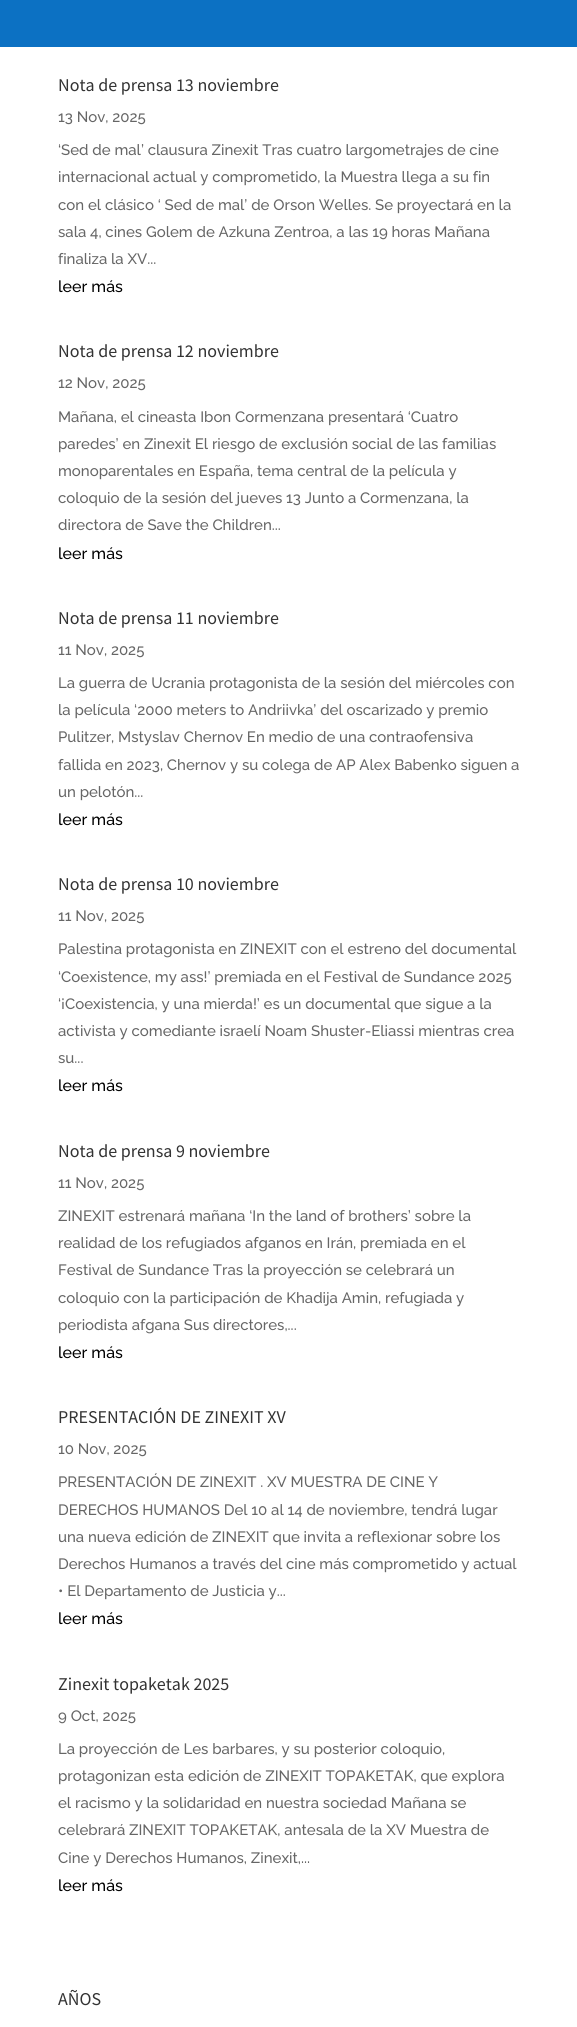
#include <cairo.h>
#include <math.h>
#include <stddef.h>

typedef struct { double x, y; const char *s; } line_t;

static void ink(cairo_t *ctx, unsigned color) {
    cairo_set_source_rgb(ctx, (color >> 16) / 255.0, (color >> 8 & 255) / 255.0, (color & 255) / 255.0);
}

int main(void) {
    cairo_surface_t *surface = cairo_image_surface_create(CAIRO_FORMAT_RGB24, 577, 2027);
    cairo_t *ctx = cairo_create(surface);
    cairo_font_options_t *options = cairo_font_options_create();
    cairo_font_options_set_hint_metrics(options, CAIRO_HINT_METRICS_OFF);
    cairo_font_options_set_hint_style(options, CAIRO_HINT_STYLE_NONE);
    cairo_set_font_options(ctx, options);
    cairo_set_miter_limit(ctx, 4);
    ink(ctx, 0xFFFFFF);
    cairo_paint(ctx);
    ink(ctx, 0x0C71C3);
    cairo_rectangle(ctx, 0, 0, 577, 47);
    cairo_fill(ctx);
    cairo_select_font_face(ctx, "Source Sans Pro", CAIRO_FONT_SLANT_NORMAL, CAIRO_FONT_WEIGHT_NORMAL);
    cairo_set_font_size(ctx, 18);
    ink(ctx, 0x333333);
    cairo_move_to(ctx, 58, 91);
    cairo_show_text(ctx, "Nota de prensa 13 noviembre");
    cairo_select_font_face(ctx, "Raleway Medium", CAIRO_FONT_SLANT_NORMAL, CAIRO_FONT_WEIGHT_NORMAL);
    cairo_set_font_size(ctx, 15);
    ink(ctx, 0x666666);
    {
        static const line_t items[] = {
            {58, 122, "13 Nov, 2025"},
            {58, 155, "‘Sed de mal’ clausura Zinexit Tras cuatro largometrajes de cine"},
            {58, 182, "internacional actual y comprometido, la Muestra llega a su fin"},
            {58, 210, "con el clásico ‘ Sed de mal’ de Orson Welles. Se proyectará en la"},
            {58, 237, "sala 4, cines Golem de Azkuna Zentroa, a las 19 horas Mañana"},
            {58, 264, "finaliza la XV..."},
        };
        for (size_t i = 0; i < sizeof items / sizeof *items; i++) {
            cairo_move_to(ctx, items[i].x, items[i].y);
            cairo_show_text(ctx, items[i].s);
        }
    }
    cairo_set_font_size(ctx, 16);
    ink(ctx, 0x000000);
    cairo_move_to(ctx, 58, 292);
    cairo_show_text(ctx, "leer más");
    cairo_select_font_face(ctx, "Source Sans Pro", CAIRO_FONT_SLANT_NORMAL, CAIRO_FONT_WEIGHT_NORMAL);
    cairo_set_font_size(ctx, 18);
    ink(ctx, 0x333333);
    cairo_move_to(ctx, 58, 357);
    cairo_show_text(ctx, "Nota de prensa 12 noviembre");
    cairo_select_font_face(ctx, "Raleway Medium", CAIRO_FONT_SLANT_NORMAL, CAIRO_FONT_WEIGHT_NORMAL);
    cairo_set_font_size(ctx, 15);
    ink(ctx, 0x666666);
    {
        static const line_t items[] = {
            {58, 388, "12 Nov, 2025"},
            {58, 422, "Mañana, el cineasta Ibon Cormenzana presentará ‘Cuatro"},
            {58, 449, "paredes’ en Zinexit El riesgo de exclusión social de las familias"},
            {58, 476, "monoparentales en España, tema central de la película y"},
            {58, 503, "coloquio de la sesión del jueves 13 Junto a Cormenzana, la"},
            {58, 530, "directora de Save the Children..."},
        };
        for (size_t i = 0; i < sizeof items / sizeof *items; i++) {
            cairo_move_to(ctx, items[i].x, items[i].y);
            cairo_show_text(ctx, items[i].s);
        }
    }
    cairo_set_font_size(ctx, 16);
    ink(ctx, 0x000000);
    cairo_move_to(ctx, 58, 559);
    cairo_show_text(ctx, "leer más");
    cairo_select_font_face(ctx, "Source Sans Pro", CAIRO_FONT_SLANT_NORMAL, CAIRO_FONT_WEIGHT_NORMAL);
    cairo_set_font_size(ctx, 18);
    ink(ctx, 0x333333);
    cairo_move_to(ctx, 58, 624);
    cairo_show_text(ctx, "Nota de prensa 11 noviembre");
    cairo_select_font_face(ctx, "Raleway Medium", CAIRO_FONT_SLANT_NORMAL, CAIRO_FONT_WEIGHT_NORMAL);
    cairo_set_font_size(ctx, 15);
    ink(ctx, 0x666666);
    {
        static const line_t items[] = {
            {58, 655, "11 Nov, 2025"},
            {58, 688, "La guerra de Ucrania protagonista de la sesión del miércoles con"},
            {58, 715, "la película ‘2000 meters to Andriivka’ del oscarizado y premio"},
            {58, 742, "Pulitzer, Mstyslav Chernov En medio de una contraofensiva"},
            {58, 770, "fallida en 2023, Chernov y su colega de AP Alex Babenko siguen a"},
            {58, 797, "un pelotón..."},
        };
        for (size_t i = 0; i < sizeof items / sizeof *items; i++) {
            cairo_move_to(ctx, items[i].x, items[i].y);
            cairo_show_text(ctx, items[i].s);
        }
    }
    cairo_set_font_size(ctx, 16);
    ink(ctx, 0x000000);
    cairo_move_to(ctx, 58, 825);
    cairo_show_text(ctx, "leer más");
    cairo_select_font_face(ctx, "Source Sans Pro", CAIRO_FONT_SLANT_NORMAL, CAIRO_FONT_WEIGHT_NORMAL);
    cairo_set_font_size(ctx, 18);
    ink(ctx, 0x333333);
    cairo_move_to(ctx, 58, 890);
    cairo_show_text(ctx, "Nota de prensa 10 noviembre");
    cairo_select_font_face(ctx, "Raleway Medium", CAIRO_FONT_SLANT_NORMAL, CAIRO_FONT_WEIGHT_NORMAL);
    cairo_set_font_size(ctx, 15);
    ink(ctx, 0x666666);
    {
        static const line_t items[] = {
            {58, 921, "11 Nov, 2025"},
            {58, 954, "Palestina protagonista en ZINEXIT con el estreno del documental"},
            {58, 982, "‘Coexistence, my ass!’ premiada en el Festival de Sundance 2025"},
            {58, 1009, "‘¡Coexistencia, y una mierda!’ es un documental que sigue a la"},
            {58, 1036, "activista y comediante israelí Noam Shuster-Eliassi mientras crea"},
            {58, 1063, "su..."},
        };
        for (size_t i = 0; i < sizeof items / sizeof *items; i++) {
            cairo_move_to(ctx, items[i].x, items[i].y);
            cairo_show_text(ctx, items[i].s);
        }
    }
    cairo_set_font_size(ctx, 16);
    ink(ctx, 0x000000);
    cairo_move_to(ctx, 58, 1091);
    cairo_show_text(ctx, "leer más");
    cairo_select_font_face(ctx, "Source Sans Pro", CAIRO_FONT_SLANT_NORMAL, CAIRO_FONT_WEIGHT_NORMAL);
    cairo_set_font_size(ctx, 18);
    ink(ctx, 0x333333);
    cairo_move_to(ctx, 58, 1157);
    cairo_show_text(ctx, "Nota de prensa 9 noviembre");
    cairo_select_font_face(ctx, "Raleway Medium", CAIRO_FONT_SLANT_NORMAL, CAIRO_FONT_WEIGHT_NORMAL);
    cairo_set_font_size(ctx, 15);
    ink(ctx, 0x666666);
    {
        static const line_t items[] = {
            {58, 1188, "11 Nov, 2025"},
            {58, 1221, "ZINEXIT estrenará mañana ‘In the land of brothers’ sobre la"},
            {58, 1248, "realidad de los refugiados afganos en Irán, premiada en el"},
            {58, 1275, "Festival de Sundance Tras la proyección se celebrará un"},
            {58, 1303, "coloquio con la participación de Khadija Amin, refugiada y"},
            {58, 1330, "periodista afgana Sus directores,..."},
        };
        for (size_t i = 0; i < sizeof items / sizeof *items; i++) {
            cairo_move_to(ctx, items[i].x, items[i].y);
            cairo_show_text(ctx, items[i].s);
        }
    }
    cairo_set_font_size(ctx, 16);
    ink(ctx, 0x000000);
    cairo_move_to(ctx, 58, 1358);
    cairo_show_text(ctx, "leer más");
    cairo_select_font_face(ctx, "Source Sans Pro", CAIRO_FONT_SLANT_NORMAL, CAIRO_FONT_WEIGHT_NORMAL);
    cairo_set_font_size(ctx, 18);
    ink(ctx, 0x333333);
    cairo_move_to(ctx, 58, 1423);
    cairo_show_text(ctx, "PRESENTACIÓN DE ZINEXIT XV");
    cairo_select_font_face(ctx, "Raleway Medium", CAIRO_FONT_SLANT_NORMAL, CAIRO_FONT_WEIGHT_NORMAL);
    cairo_set_font_size(ctx, 15);
    ink(ctx, 0x666666);
    {
        static const line_t items[] = {
            {58, 1454, "10 Nov, 2025"},
            {58, 1487, "PRESENTACIÓN DE ZINEXIT . XV MUESTRA DE CINE Y"},
            {58, 1515, "DERECHOS HUMANOS Del 10 al 14 de noviembre, tendrá lugar"},
            {58, 1542, "una nueva edición de ZINEXIT que invita a reflexionar sobre los"},
            {58, 1569, "Derechos Humanos a través del cine más comprometido y actual"},
            {58, 1596, "• El Departamento de Justicia y..."},
        };
        for (size_t i = 0; i < sizeof items / sizeof *items; i++) {
            cairo_move_to(ctx, items[i].x, items[i].y);
            cairo_show_text(ctx, items[i].s);
        }
    }
    cairo_set_font_size(ctx, 16);
    ink(ctx, 0x000000);
    cairo_move_to(ctx, 58, 1624);
    cairo_show_text(ctx, "leer más");
    cairo_select_font_face(ctx, "Source Sans Pro", CAIRO_FONT_SLANT_NORMAL, CAIRO_FONT_WEIGHT_NORMAL);
    cairo_set_font_size(ctx, 18);
    ink(ctx, 0x333333);
    cairo_move_to(ctx, 58, 1690);
    cairo_show_text(ctx, "Zinexit topaketak 2025");
    cairo_select_font_face(ctx, "Raleway Medium", CAIRO_FONT_SLANT_NORMAL, CAIRO_FONT_WEIGHT_NORMAL);
    cairo_set_font_size(ctx, 15);
    ink(ctx, 0x666666);
    {
        static const line_t items[] = {
            {58, 1721, "9 Oct, 2025"},
            {58, 1754, "La proyección de Les barbares, y su posterior coloquio,"},
            {58, 1781, "protagonizan esta edición de ZINEXIT TOPAKETAK, que explora"},
            {58, 1808, "el racismo y la solidaridad en nuestra sociedad Mañana se"},
            {58, 1835, "celebrará ZINEXIT TOPAKETAK, antesala de la XV Muestra de"},
            {58, 1863, "Cine y Derechos Humanos, Zinexit,..."},
        };
        for (size_t i = 0; i < sizeof items / sizeof *items; i++) {
            cairo_move_to(ctx, items[i].x, items[i].y);
            cairo_show_text(ctx, items[i].s);
        }
    }
    cairo_set_font_size(ctx, 16);
    ink(ctx, 0x000000);
    cairo_move_to(ctx, 58, 1891);
    cairo_show_text(ctx, "leer más");
    cairo_select_font_face(ctx, "Source Sans Pro", CAIRO_FONT_SLANT_NORMAL, CAIRO_FONT_WEIGHT_NORMAL);
    cairo_set_font_size(ctx, 18);
    ink(ctx, 0x333333);
    cairo_move_to(ctx, 58, 2005);
    cairo_show_text(ctx, "AÑOS");
    cairo_surface_write_to_png(surface, "image.png");
    cairo_font_options_destroy(options);
    cairo_destroy(ctx);
    cairo_surface_destroy(surface);
    return 0;
}
